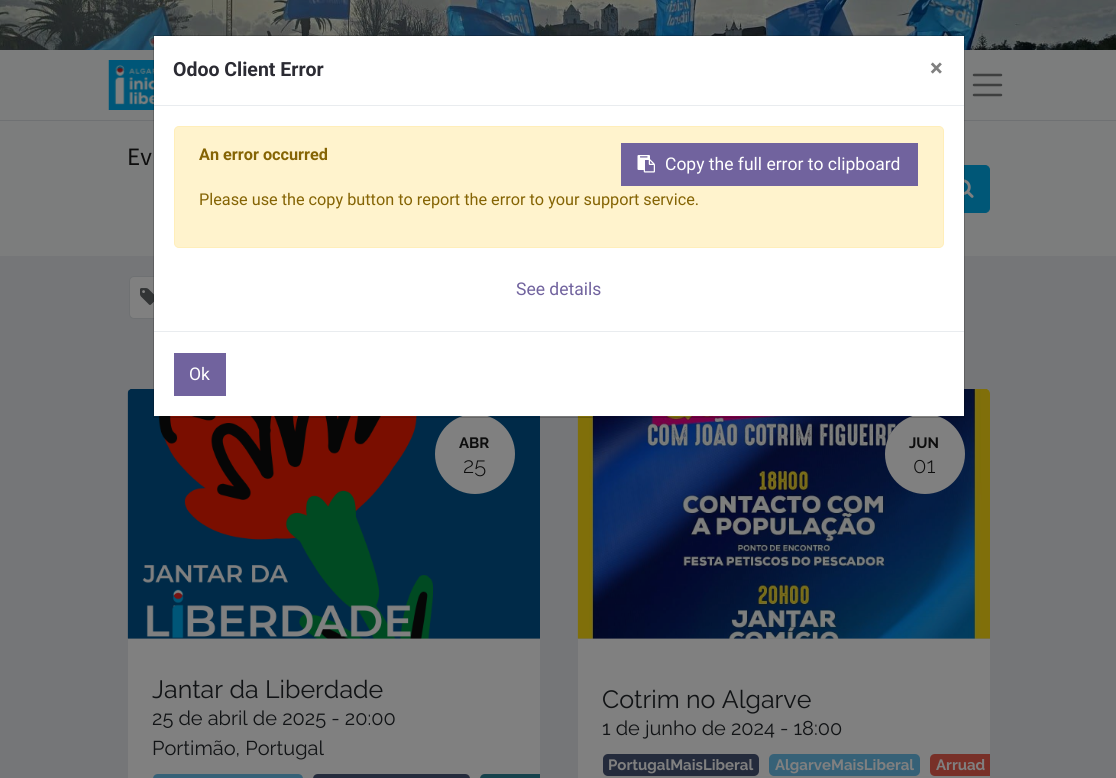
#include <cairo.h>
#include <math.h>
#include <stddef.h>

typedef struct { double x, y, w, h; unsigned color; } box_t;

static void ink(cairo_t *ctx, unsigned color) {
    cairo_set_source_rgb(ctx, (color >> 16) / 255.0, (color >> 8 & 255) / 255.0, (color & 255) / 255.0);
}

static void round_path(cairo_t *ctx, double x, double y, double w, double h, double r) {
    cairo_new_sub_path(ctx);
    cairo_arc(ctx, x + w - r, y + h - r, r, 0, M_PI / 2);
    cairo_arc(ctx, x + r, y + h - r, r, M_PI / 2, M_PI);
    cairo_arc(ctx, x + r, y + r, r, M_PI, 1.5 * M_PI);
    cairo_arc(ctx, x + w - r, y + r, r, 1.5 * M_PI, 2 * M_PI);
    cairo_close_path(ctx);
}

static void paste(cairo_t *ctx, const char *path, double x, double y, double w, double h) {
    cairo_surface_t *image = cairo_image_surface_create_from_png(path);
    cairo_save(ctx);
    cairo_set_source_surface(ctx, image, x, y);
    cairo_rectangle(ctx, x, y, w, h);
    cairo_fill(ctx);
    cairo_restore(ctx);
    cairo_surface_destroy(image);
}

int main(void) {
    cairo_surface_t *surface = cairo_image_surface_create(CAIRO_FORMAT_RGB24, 1116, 778);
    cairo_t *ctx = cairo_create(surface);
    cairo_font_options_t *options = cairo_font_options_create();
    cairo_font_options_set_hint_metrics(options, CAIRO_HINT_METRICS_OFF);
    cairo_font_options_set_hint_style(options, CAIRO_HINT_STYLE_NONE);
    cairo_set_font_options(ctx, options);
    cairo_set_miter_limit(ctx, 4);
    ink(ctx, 0x757678);
    cairo_paint(ctx);
    paste(ctx, "media/2.png", 0, 0, 1116, 50);
    {
        static const box_t items[] = {
            {0, 50, 1116, 70, 0x7C7D7D},
            {0, 121, 1116, 135, 0x7C7D7D},
            {0, 120, 1116, 1, 0x6F7173},
        };
        for (size_t i = 0; i < sizeof items / sizeof *items; i++) {
            ink(ctx, items[i].color);
            cairo_rectangle(ctx, items[i].x, items[i].y, items[i].w, items[i].h);
            cairo_fill(ctx);
        }
    }
    ink(ctx, 0x005777);
    cairo_new_path(ctx);
    cairo_move_to(ctx, 939.5, 165.5);
    cairo_line_to(ctx, 985, 165.5);
    cairo_curve_to(ctx, 987.5, 165.5, 989.5, 167.5, 989.5, 170);
    cairo_line_to(ctx, 989.5, 208);
    cairo_curve_to(ctx, 989.5, 210.5, 987.5, 212.5, 985, 212.5);
    cairo_line_to(ctx, 939.5, 212.5);
    cairo_close_path(ctx);
    cairo_fill_preserve(ctx);
    cairo_set_line_width(ctx, 1);
    cairo_stroke(ctx);
    ink(ctx, 0x808080);
    round_path(ctx, 129.5, 276.5, 261, 42, 4.5);
    cairo_fill_preserve(ctx);
    ink(ctx, 0x6F7173);
    cairo_stroke(ctx);
    ink(ctx, 0x808080);
    cairo_new_path(ctx);
    cairo_move_to(ctx, 133, 389);
    cairo_line_to(ctx, 535, 389);
    cairo_curve_to(ctx, 538, 389, 540, 391, 540, 394);
    cairo_line_to(ctx, 540, 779);
    cairo_line_to(ctx, 128, 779);
    cairo_line_to(ctx, 128, 394);
    cairo_curve_to(ctx, 128, 391, 130, 389, 133, 389);
    cairo_close_path(ctx);
    cairo_fill(ctx);
    ink(ctx, 0x757678);
    cairo_new_path(ctx);
    cairo_move_to(ctx, 133, 389);
    cairo_line_to(ctx, 535, 389);
    cairo_curve_to(ctx, 538, 389, 540, 391, 540, 394);
    cairo_line_to(ctx, 540, 639);
    cairo_line_to(ctx, 128, 639);
    cairo_line_to(ctx, 128, 394);
    cairo_curve_to(ctx, 128, 391, 130, 389, 133, 389);
    cairo_close_path(ctx);
    cairo_fill(ctx);
    paste(ctx, "media/6.png", 127, 389, 413, 250);
    ink(ctx, 0x808080);
    cairo_arc(ctx, 475, 454, 40, 0, 2 * M_PI);
    cairo_fill(ctx);
    cairo_new_path(ctx);
    cairo_move_to(ctx, 583, 389);
    cairo_line_to(ctx, 985, 389);
    cairo_curve_to(ctx, 988, 389, 990, 391, 990, 394);
    cairo_line_to(ctx, 990, 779);
    cairo_line_to(ctx, 578, 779);
    cairo_line_to(ctx, 578, 394);
    cairo_curve_to(ctx, 578, 391, 580, 389, 583, 389);
    cairo_close_path(ctx);
    cairo_fill(ctx);
    ink(ctx, 0x757678);
    cairo_new_path(ctx);
    cairo_move_to(ctx, 583, 389);
    cairo_line_to(ctx, 985, 389);
    cairo_curve_to(ctx, 988, 389, 990, 391, 990, 394);
    cairo_line_to(ctx, 990, 639);
    cairo_line_to(ctx, 578, 639);
    cairo_line_to(ctx, 578, 394);
    cairo_curve_to(ctx, 578, 391, 580, 389, 583, 389);
    cairo_close_path(ctx);
    cairo_fill(ctx);
    paste(ctx, "media/7.png", 577, 389, 413, 250);
    ink(ctx, 0x808080);
    cairo_arc(ctx, 925, 454, 40, 0, 2 * M_PI);
    cairo_fill(ctx);
    ink(ctx, 0xFFFFFF);
    cairo_rectangle(ctx, 154, 36, 810, 380);
    cairo_fill(ctx);
    paste(ctx, "media/3.png", 108, 60, 46, 50);
    paste(ctx, "media/4.png", 964, 179, 10, 19);
    paste(ctx, "media/5.png", 140, 288, 14, 17);
    cairo_rectangle(ctx, 153.5, 35.5, 811, 382);
    cairo_set_source_rgba(ctx, 0, 0, 0, 0.2);
    cairo_stroke(ctx);
    ink(ctx, 0xE9ECEF);
    cairo_rectangle(ctx, 154, 105, 810, 1);
    cairo_fill(ctx);
    cairo_select_font_face(ctx, "Roboto", CAIRO_FONT_SLANT_NORMAL, CAIRO_FONT_WEIGHT_BOLD);
    cairo_set_font_size(ctx, 19.5);
    ink(ctx, 0x2B2B33);
    cairo_move_to(ctx, 173, 76);
    cairo_show_text(ctx, "Odoo Client Error");
    cairo_set_font_size(ctx, 24);
    ink(ctx, 0x808080);
    cairo_move_to(ctx, 930, 76);
    cairo_show_text(ctx, "×");
    ink(ctx, 0xFFF3CD);
    round_path(ctx, 174.5, 126.5, 769, 121, 4.5);
    cairo_fill_preserve(ctx);
    ink(ctx, 0xFFEEBA);
    cairo_stroke(ctx);
    cairo_set_font_size(ctx, 16.25);
    ink(ctx, 0x856404);
    cairo_move_to(ctx, 199, 160);
    cairo_show_text(ctx, "An error occurred");
    ink(ctx, 0x71639E);
    cairo_rectangle(ctx, 621, 143, 297, 43);
    cairo_fill(ctx);
    paste(ctx, "media/1.png", 637, 155, 18, 18);
    cairo_select_font_face(ctx, "Roboto", CAIRO_FONT_SLANT_NORMAL, CAIRO_FONT_WEIGHT_NORMAL);
    cairo_set_font_size(ctx, 17.5);
    ink(ctx, 0xFFFFFF);
    cairo_move_to(ctx, 665, 170);
    cairo_show_text(ctx, "Copy the full error to clipboard");
    cairo_set_font_size(ctx, 16.25);
    ink(ctx, 0x856404);
    cairo_move_to(ctx, 199, 205);
    cairo_show_text(ctx, "Please use the copy button to report the error to your support service.");
    cairo_set_font_size(ctx, 17.5);
    ink(ctx, 0x71639E);
    cairo_move_to(ctx, 516, 295);
    cairo_show_text(ctx, "See details");
    ink(ctx, 0xE9ECEF);
    cairo_rectangle(ctx, 154, 331, 810, 1);
    cairo_fill(ctx);
    ink(ctx, 0x71639E);
    cairo_rectangle(ctx, 174, 353, 52, 43);
    cairo_fill(ctx);
    ink(ctx, 0xFFFFFF);
    cairo_move_to(ctx, 189, 380);
    cairo_show_text(ctx, "Ok");
    cairo_new_path(ctx);
    cairo_move_to(ctx, 974, 75);
    cairo_line_to(ctx, 1001, 75);
    cairo_move_to(ctx, 974, 85);
    cairo_line_to(ctx, 1001, 85);
    cairo_move_to(ctx, 974, 95);
    cairo_line_to(ctx, 1001, 95);
    ink(ctx, 0x3E3F3F);
    cairo_set_line_width(ctx, 2.5);
    cairo_set_line_cap(ctx, CAIRO_LINE_CAP_ROUND);
    cairo_stroke(ctx);
    cairo_select_font_face(ctx, "Source Sans Pro", CAIRO_FONT_SLANT_NORMAL, CAIRO_FONT_WEIGHT_NORMAL);
    cairo_set_font_size(ctx, 25);
    ink(ctx, 0x0D0D0D);
    cairo_move_to(ctx, 127, 165);
    cairo_show_text(ctx, "Ev");
    cairo_select_font_face(ctx, "Raleway", CAIRO_FONT_SLANT_NORMAL, CAIRO_FONT_WEIGHT_BOLD);
    cairo_set_font_size(ctx, 15);
    cairo_move_to(ctx, 459, 448);
    cairo_show_text(ctx, "ABR");
    cairo_select_font_face(ctx, "Raleway Light", CAIRO_FONT_SLANT_NORMAL, CAIRO_FONT_WEIGHT_NORMAL);
    cairo_set_font_size(ctx, 22);
    cairo_move_to(ctx, 463, 473);
    cairo_show_text(ctx, "25");
    cairo_select_font_face(ctx, "Raleway", CAIRO_FONT_SLANT_NORMAL, CAIRO_FONT_WEIGHT_NORMAL);
    cairo_set_font_size(ctx, 25);
    ink(ctx, 0x111315);
    cairo_move_to(ctx, 152, 698);
    cairo_show_text(ctx, "Jantar da Liberdade");
    cairo_set_font_size(ctx, 20);
    cairo_move_to(ctx, 152, 725);
    cairo_show_text(ctx, "25 de abril de 2025 - 20:00");
    cairo_move_to(ctx, 152, 755);
    cairo_show_text(ctx, "Portimão, Portugal");
    ink(ctx, 0x366177);
    cairo_new_path(ctx);
    cairo_move_to(ctx, 158, 774);
    cairo_line_to(ctx, 298, 774);
    cairo_curve_to(ctx, 301, 774, 303, 776, 303, 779);
    cairo_line_to(ctx, 153, 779);
    cairo_curve_to(ctx, 153, 776, 155, 774, 158, 774);
    cairo_close_path(ctx);
    cairo_fill(ctx);
    ink(ctx, 0x242B3C);
    cairo_new_path(ctx);
    cairo_move_to(ctx, 318, 774);
    cairo_line_to(ctx, 465, 774);
    cairo_curve_to(ctx, 468, 774, 470, 776, 470, 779);
    cairo_line_to(ctx, 313, 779);
    cairo_curve_to(ctx, 313, 776, 315, 774, 318, 774);
    cairo_close_path(ctx);
    cairo_fill(ctx);
    ink(ctx, 0x16424C);
    cairo_new_path(ctx);
    cairo_move_to(ctx, 485, 774);
    cairo_line_to(ctx, 540, 774);
    cairo_line_to(ctx, 540, 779);
    cairo_line_to(ctx, 480, 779);
    cairo_curve_to(ctx, 480, 776, 482, 774, 485, 774);
    cairo_close_path(ctx);
    cairo_fill(ctx);
    cairo_select_font_face(ctx, "Raleway", CAIRO_FONT_SLANT_NORMAL, CAIRO_FONT_WEIGHT_BOLD);
    cairo_set_font_size(ctx, 15);
    ink(ctx, 0x0D0D0D);
    cairo_move_to(ctx, 909, 448);
    cairo_show_text(ctx, "JUN");
    cairo_select_font_face(ctx, "Raleway Light", CAIRO_FONT_SLANT_NORMAL, CAIRO_FONT_WEIGHT_NORMAL);
    cairo_set_font_size(ctx, 22);
    cairo_move_to(ctx, 913, 473);
    cairo_show_text(ctx, "01");
    cairo_select_font_face(ctx, "Raleway", CAIRO_FONT_SLANT_NORMAL, CAIRO_FONT_WEIGHT_NORMAL);
    cairo_set_font_size(ctx, 25);
    ink(ctx, 0x111315);
    cairo_move_to(ctx, 602, 708);
    cairo_show_text(ctx, "Cotrim no Algarve");
    cairo_set_font_size(ctx, 20);
    cairo_move_to(ctx, 602, 735);
    cairo_show_text(ctx, "1 de junho de 2024 - 18:00");
    ink(ctx, 0x242B3C);
    round_path(ctx, 603, 754, 156, 22, 5);
    cairo_fill(ctx);
    cairo_select_font_face(ctx, "Raleway", CAIRO_FONT_SLANT_NORMAL, CAIRO_FONT_WEIGHT_BOLD);
    cairo_set_font_size(ctx, 15);
    ink(ctx, 0x808080);
    cairo_move_to(ctx, 608, 770);
    cairo_show_text(ctx, "PortugalMaisLiberal");
    ink(ctx, 0x366177);
    round_path(ctx, 769, 754, 151, 22, 5);
    cairo_fill(ctx);
    ink(ctx, 0x808080);
    cairo_move_to(ctx, 775, 770);
    cairo_show_text(ctx, "AlgarveMaisLiberal");
    ink(ctx, 0x783028);
    cairo_new_path(ctx);
    cairo_move_to(ctx, 935, 754);
    cairo_line_to(ctx, 990, 754);
    cairo_line_to(ctx, 990, 776);
    cairo_line_to(ctx, 935, 776);
    cairo_curve_to(ctx, 932, 776, 930, 774, 930, 771);
    cairo_line_to(ctx, 930, 759);
    cairo_curve_to(ctx, 930, 756, 932, 754, 935, 754);
    cairo_close_path(ctx);
    cairo_fill(ctx);
    ink(ctx, 0x808080);
    cairo_move_to(ctx, 936, 770);
    cairo_show_text(ctx, "Arruad");
    cairo_surface_write_to_png(surface, "image.png");
    cairo_font_options_destroy(options);
    cairo_destroy(ctx);
    cairo_surface_destroy(surface);
    return 0;
}
